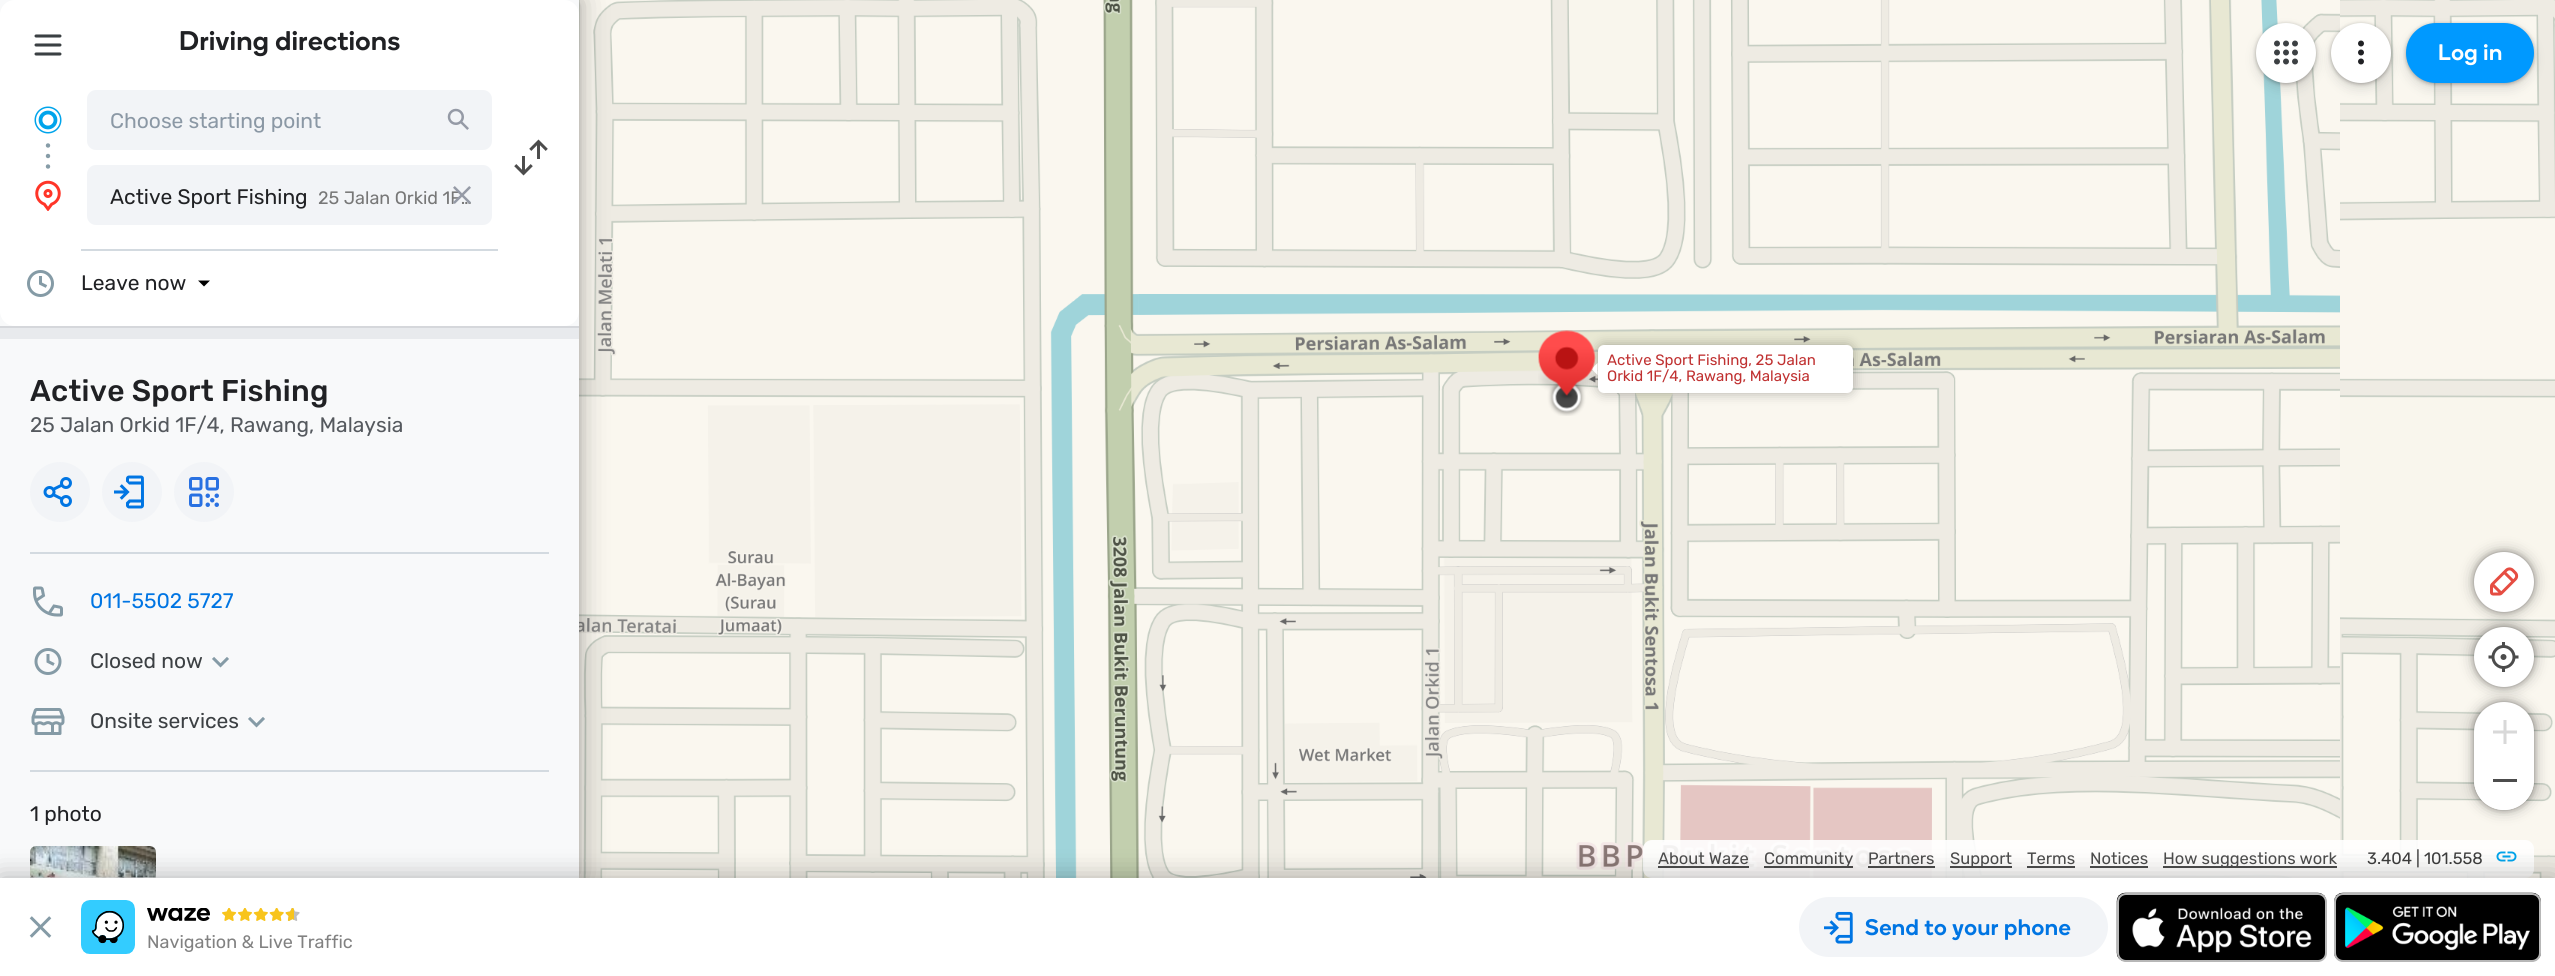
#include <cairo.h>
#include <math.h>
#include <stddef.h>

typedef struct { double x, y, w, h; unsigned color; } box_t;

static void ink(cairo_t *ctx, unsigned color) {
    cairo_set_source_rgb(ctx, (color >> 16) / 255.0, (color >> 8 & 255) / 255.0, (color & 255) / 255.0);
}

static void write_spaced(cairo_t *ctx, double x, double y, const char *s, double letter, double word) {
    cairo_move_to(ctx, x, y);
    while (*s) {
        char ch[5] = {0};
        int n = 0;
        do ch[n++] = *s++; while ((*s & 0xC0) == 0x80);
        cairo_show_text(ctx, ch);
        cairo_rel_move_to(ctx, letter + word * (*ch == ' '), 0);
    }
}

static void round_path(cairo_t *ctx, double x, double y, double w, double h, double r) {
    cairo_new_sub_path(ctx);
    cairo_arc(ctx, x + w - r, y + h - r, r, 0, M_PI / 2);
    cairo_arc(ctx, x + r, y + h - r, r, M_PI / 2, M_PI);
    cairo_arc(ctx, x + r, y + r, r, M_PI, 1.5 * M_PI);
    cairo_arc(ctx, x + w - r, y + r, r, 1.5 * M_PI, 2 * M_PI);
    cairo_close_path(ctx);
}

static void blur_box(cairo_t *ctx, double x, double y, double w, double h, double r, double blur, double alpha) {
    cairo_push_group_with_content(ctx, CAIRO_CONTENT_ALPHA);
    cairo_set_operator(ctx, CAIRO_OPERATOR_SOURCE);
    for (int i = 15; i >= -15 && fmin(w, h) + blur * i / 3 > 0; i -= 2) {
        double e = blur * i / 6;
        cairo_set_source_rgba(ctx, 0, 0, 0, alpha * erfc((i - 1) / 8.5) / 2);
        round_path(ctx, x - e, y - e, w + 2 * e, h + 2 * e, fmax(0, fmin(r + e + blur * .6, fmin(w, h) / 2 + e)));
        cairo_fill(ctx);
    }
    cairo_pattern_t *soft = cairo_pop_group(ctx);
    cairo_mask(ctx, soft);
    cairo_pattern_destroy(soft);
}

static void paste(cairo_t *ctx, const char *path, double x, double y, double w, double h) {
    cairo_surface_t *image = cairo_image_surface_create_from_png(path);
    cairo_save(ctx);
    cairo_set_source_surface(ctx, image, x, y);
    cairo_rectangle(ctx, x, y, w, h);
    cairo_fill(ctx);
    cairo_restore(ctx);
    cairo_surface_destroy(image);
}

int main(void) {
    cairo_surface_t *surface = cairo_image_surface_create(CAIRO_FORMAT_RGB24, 2555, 976);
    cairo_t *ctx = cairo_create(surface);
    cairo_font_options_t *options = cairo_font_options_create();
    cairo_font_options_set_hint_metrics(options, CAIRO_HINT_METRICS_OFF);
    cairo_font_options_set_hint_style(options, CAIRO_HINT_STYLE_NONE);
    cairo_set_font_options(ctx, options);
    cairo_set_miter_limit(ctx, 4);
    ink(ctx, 0xF9F6ED);
    cairo_paint(ctx);
    paste(ctx, "media/16.png", 579, 0, 225, 110);
    paste(ctx, "media/22.png", 579, 110, 225, 384);
    paste(ctx, "media/28.png", 579, 494, 225, 384);
    ink(ctx, 0x000000);
    blur_box(ctx, 0, 3, 579, 878, 0, 6, 0.12);
    blur_box(ctx, 0, 0, 579, 878, 0, 15, 0.3);
    ink(ctx, 0xF8F9FA);
    cairo_rectangle(ctx, 0, 0, 579, 878);
    cairo_fill(ctx);
    ink(ctx, 0xFFFFFF);
    cairo_new_path(ctx);
    cairo_move_to(ctx, 15, 0);
    cairo_line_to(ctx, 564, 0);
    cairo_curve_to(ctx, 572.5, 0, 579, 6.5, 579, 15);
    cairo_line_to(ctx, 579, 90);
    cairo_line_to(ctx, 0, 90);
    cairo_line_to(ctx, 0, 15);
    cairo_curve_to(ctx, 0, 6.5, 6.5, 0, 15, 0);
    cairo_close_path(ctx);
    cairo_fill(ctx);
    paste(ctx, "media/1.png", 34, 34, 28, 22);
    cairo_select_font_face(ctx, "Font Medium", CAIRO_FONT_SLANT_NORMAL, CAIRO_FONT_WEIGHT_NORMAL);
    cairo_set_font_size(ctx, 27);
    ink(ctx, 0x202124);
    write_spaced(ctx, 179, 50, "Driving directions", 0.5, 0);
    ink(ctx, 0xFFFFFF);
    cairo_rectangle(ctx, 0, 90, 579, 159);
    cairo_fill(ctx);
    ink(ctx, 0x869CA7);
    cairo_arc(ctx, 48, 145.5, 2.2, 0, 2 * M_PI);
    cairo_fill(ctx);
    cairo_arc(ctx, 48, 156, 2.2, 0, 2 * M_PI);
    cairo_fill(ctx);
    cairo_arc(ctx, 48, 166.5, 2.2, 0, 2 * M_PI);
    cairo_fill(ctx);
    paste(ctx, "media/2.png", 34, 106, 28, 28);
    ink(ctx, 0xF2F4F7);
    round_path(ctx, 87, 90, 405, 60, 9);
    cairo_fill(ctx);
    cairo_select_font_face(ctx, "Rubik", CAIRO_FONT_SLANT_NORMAL, CAIRO_FONT_WEIGHT_NORMAL);
    cairo_set_font_size(ctx, 21);
    ink(ctx, 0x8B98A5);
    cairo_move_to(ctx, 110, 128);
    cairo_show_text(ctx, "Choose starting point");
    paste(ctx, "media/3.png", 447, 108, 22, 22);
    paste(ctx, "media/4.png", 514, 139, 34, 37);
    paste(ctx, "media/5.png", 35, 180, 26, 31);
    ink(ctx, 0xF2F4F7);
    round_path(ctx, 87, 165, 405, 60, 9);
    cairo_fill(ctx);
    cairo_set_font_size(ctx, 18);
    ink(ctx, 0x777777);
    cairo_move_to(ctx, 318, 204);
    cairo_show_text(ctx, "25 Jalan Orkid 1F…");
    paste(ctx, "media/6.png", 453, 186, 18, 18);
    cairo_set_font_size(ctx, 21);
    ink(ctx, 0x202124);
    cairo_move_to(ctx, 110, 204);
    cairo_show_text(ctx, "Active Sport Fishing");
    ink(ctx, 0xFFFFFF);
    cairo_new_path(ctx);
    cairo_move_to(ctx, 0, 249);
    cairo_line_to(ctx, 579, 249);
    cairo_line_to(ctx, 579, 311);
    cairo_curve_to(ctx, 579, 319.5, 572.5, 326, 564, 326);
    cairo_line_to(ctx, 15, 326);
    cairo_curve_to(ctx, 6.5, 326, 0, 319.5, 0, 311);
    cairo_close_path(ctx);
    cairo_fill(ctx);
    ink(ctx, 0xD3DAE0);
    cairo_rectangle(ctx, 81, 249, 417, 2);
    cairo_fill(ctx);
    paste(ctx, "media/7.png", 27, 270, 27, 27);
    ink(ctx, 0x202124);
    cairo_move_to(ctx, 81, 290);
    cairo_show_text(ctx, "Leave now");
    ink(ctx, 0x000000);
    cairo_new_path(ctx);
    cairo_move_to(ctx, 198, 280.5);
    cairo_line_to(ctx, 210, 280.5);
    cairo_line_to(ctx, 204, 286.5);
    cairo_close_path(ctx);
    cairo_fill(ctx);
    {
        static const box_t items[] = {
            {0, 326, 579, 2, 0xD5D7DB},
            {0, 328, 579, 11, 0xE8EAED},
            {30, 552, 519, 2, 0xD3DAE0},
        };
        for (size_t i = 0; i < sizeof items / sizeof *items; i++) {
            ink(ctx, items[i].color);
            cairo_rectangle(ctx, items[i].x, items[i].y, items[i].w, items[i].h);
            cairo_fill(ctx);
        }
    }
    cairo_select_font_face(ctx, "Rubik Medium", CAIRO_FONT_SLANT_NORMAL, CAIRO_FONT_WEIGHT_NORMAL);
    cairo_set_font_size(ctx, 30);
    ink(ctx, 0x202124);
    write_spaced(ctx, 30, 401, "Active Sport Fishing", 0.25, 0);
    cairo_select_font_face(ctx, "Rubik", CAIRO_FONT_SLANT_NORMAL, CAIRO_FONT_WEIGHT_NORMAL);
    cairo_set_font_size(ctx, 21);
    ink(ctx, 0x55595E);
    cairo_move_to(ctx, 30, 432);
    cairo_show_text(ctx, "25 Jalan Orkid 1F/4, Rawang, Malaysia");
    ink(ctx, 0xF2F4F7);
    cairo_new_path(ctx);
    cairo_arc(ctx, 60, 492, 30, 0, 2 * M_PI);
    cairo_fill(ctx);
    paste(ctx, "media/8.png", 43, 477, 29, 30);
    cairo_arc(ctx, 132, 492, 30, 0, 2 * M_PI);
    cairo_fill(ctx);
    paste(ctx, "media/9.png", 114, 475, 30, 34);
    cairo_arc(ctx, 204, 492, 30, 0, 2 * M_PI);
    cairo_fill(ctx);
    paste(ctx, "media/10.png", 189, 477, 30, 30);
    ink(ctx, 0xD3DAE0);
    cairo_rectangle(ctx, 30, 770, 519, 2);
    cairo_fill(ctx);
    paste(ctx, "media/11.png", 33, 586, 30, 31);
    ink(ctx, 0x0075E3);
    cairo_move_to(ctx, 90, 608);
    cairo_show_text(ctx, "011-5502 5727");
    paste(ctx, "media/12.png", 34, 648, 28, 27);
    ink(ctx, 0x3C4043);
    cairo_move_to(ctx, 90, 668);
    cairo_show_text(ctx, "Closed now");
    paste(ctx, "media/13.png", 212, 657, 17, 11);
    paste(ctx, "media/14.png", 31, 708, 34, 27);
    cairo_move_to(ctx, 90, 728);
    cairo_show_text(ctx, "Onsite services");
    paste(ctx, "media/13.png", 248, 717, 17, 11);
    ink(ctx, 0x202124);
    cairo_move_to(ctx, 30, 821);
    cairo_show_text(ctx, "1 photo");
    paste(ctx, "media/15.png", 30, 846, 126, 32);
    paste(ctx, "media/17.png", 804, 0, 384, 110);
    paste(ctx, "media/18.png", 1188, 0, 382, 110);
    paste(ctx, "media/19.png", 1656, 0, 300, 110);
    paste(ctx, "media/20.png", 1956, 0, 384, 110);
    paste(ctx, "media/21.png", 2340, 0, 215, 110);
    paste(ctx, "media/23.png", 804, 110, 384, 384);
    paste(ctx, "media/24.png", 1188, 110, 384, 384);
    paste(ctx, "media/25.png", 1572, 110, 384, 384);
    paste(ctx, "media/26.png", 1956, 110, 384, 384);
    paste(ctx, "media/27.png", 2340, 110, 215, 288);
    paste(ctx, "media/29.png", 804, 494, 384, 384);
    paste(ctx, "media/30.png", 1188, 494, 384, 384);
    paste(ctx, "media/31.png", 1572, 494, 384, 384);
    paste(ctx, "media/32.png", 1956, 494, 384, 384);
    paste(ctx, "media/33.png", 2340, 617, 215, 261);
    ink(ctx, 0x000000);
    blur_box(ctx, 1598, 345, 255, 48, 6, 6, 0.3);
    ink(ctx, 0xFFFFFF);
    cairo_new_path(ctx);
    cairo_move_to(ctx, 1597.5, 363);
    cairo_line_to(ctx, 1597.5, 375);
    cairo_line_to(ctx, 1591.5, 369);
    cairo_close_path(ctx);
    cairo_fill(ctx);
    paste(ctx, "media/34.png", 1538, 330, 58, 86);
    round_path(ctx, 1598, 345, 255, 48, 6);
    cairo_fill(ctx);
    cairo_set_font_size(ctx, 15);
    ink(ctx, 0xC03131);
    cairo_move_to(ctx, 1607, 365);
    cairo_show_text(ctx, "Active Sport Fishing, 25 Jalan");
    cairo_move_to(ctx, 1607, 381);
    cairo_show_text(ctx, "Orkid 1F/4, Rawang, Malaysia");
    ink(ctx, 0x000000);
    blur_box(ctx, 2474, 552, 60, 60, 30, 7.5, 0.3);
    blur_box(ctx, 2474, 552, 60, 60, 30, 3, 0.3);
    ink(ctx, 0xFFFFFF);
    cairo_arc(ctx, 2504, 582, 30, 0, 2 * M_PI);
    cairo_fill(ctx);
    paste(ctx, "media/35.png", 2490, 567, 29, 29);
    ink(ctx, 0x000000);
    blur_box(ctx, 2474, 627, 60, 60, 30, 7.5, 0.3);
    blur_box(ctx, 2474, 627, 60, 60, 30, 3, 0.3);
    ink(ctx, 0xFFFFFF);
    cairo_arc(ctx, 2504, 657, 30, 0, 2 * M_PI);
    cairo_fill(ctx);
    paste(ctx, "media/36.png", 2488, 642, 31, 30);
    ink(ctx, 0x000000);
    blur_box(ctx, 2474, 702, 60, 108, 30, 7.5, 0.3);
    blur_box(ctx, 2474, 702, 60, 108, 30, 3, 0.3);
    ink(ctx, 0xFFFFFF);
    round_path(ctx, 2474, 702, 60, 108, 30);
    cairo_fill(ctx);
    paste(ctx, "media/37.png", 2493, 720, 24, 24);
    cairo_new_path(ctx);
    cairo_move_to(ctx, 2474, 756);
    cairo_line_to(ctx, 2534, 756);
    cairo_line_to(ctx, 2534, 780);
    cairo_curve_to(ctx, 2534, 796.5, 2520.5, 810, 2504, 810);
    cairo_curve_to(ctx, 2487.5, 810, 2474, 796.5, 2474, 780);
    cairo_close_path(ctx);
    cairo_fill(ctx);
    ink(ctx, 0x4C4C4C);
    cairo_rectangle(ctx, 2493, 779, 24, 3);
    cairo_fill(ctx);
    cairo_set_source_rgba(ctx, 1, 1, 1, 0.9);
    round_path(ctx, 1643, 840, 891, 38, 9);
    cairo_fill(ctx);
    cairo_set_font_size(ctx, 16.5);
    ink(ctx, 0x4C4C4C);
    cairo_move_to(ctx, 1658, 864);
    cairo_show_text(ctx, "About Waze");
    cairo_rectangle(ctx, 1658, 866, 91, 2);
    cairo_fill(ctx);
    cairo_rectangle(ctx, 1764, 866, 89, 2);
    cairo_fill(ctx);
    cairo_move_to(ctx, 1764, 864);
    cairo_show_text(ctx, "Community");
    cairo_move_to(ctx, 1868, 864);
    cairo_show_text(ctx, "Partners");
    cairo_rectangle(ctx, 1868, 866, 67, 2);
    cairo_fill(ctx);
    cairo_rectangle(ctx, 1950, 866, 62, 2);
    cairo_fill(ctx);
    cairo_move_to(ctx, 1950, 864);
    cairo_show_text(ctx, "Support");
    cairo_move_to(ctx, 2027, 864);
    cairo_show_text(ctx, "Terms");
    cairo_rectangle(ctx, 2027, 866, 48, 2);
    cairo_fill(ctx);
    cairo_move_to(ctx, 2090, 864);
    cairo_show_text(ctx, "Notices");
    cairo_rectangle(ctx, 2090, 866, 58, 2);
    cairo_fill(ctx);
    cairo_rectangle(ctx, 2163, 866, 174, 2);
    cairo_fill(ctx);
    cairo_move_to(ctx, 2163, 864);
    cairo_show_text(ctx, "How suggestions work");
    ink(ctx, 0x3D3D3D);
    cairo_move_to(ctx, 2367, 864);
    cairo_show_text(ctx, "3.404 | 101.558");
    paste(ctx, "media/38.png", 2496, 851, 21, 11);
    ink(ctx, 0x3C4043);
    blur_box(ctx, 2256, 29, 60, 60, 30, 6, 0.15);
    ink(ctx, 0x000000);
    blur_box(ctx, 2256, 24, 60, 60, 30, 2, 0.3);
    ink(ctx, 0xFFFFFF);
    cairo_arc(ctx, 2286, 53, 28.5, 0, 2 * M_PI);
    cairo_fill_preserve(ctx);
    cairo_set_line_width(ctx, 3);
    cairo_stroke(ctx);
    paste(ctx, "media/39.png", 2274, 40, 24, 25);
    ink(ctx, 0x3C4043);
    blur_box(ctx, 2331, 29, 60, 60, 30, 6, 0.15);
    ink(ctx, 0x000000);
    blur_box(ctx, 2331, 24, 60, 60, 30, 2, 0.3);
    ink(ctx, 0xFFFFFF);
    cairo_arc(ctx, 2361, 53, 28.5, 0, 2 * M_PI);
    cairo_fill_preserve(ctx);
    cairo_stroke(ctx);
    paste(ctx, "media/40.png", 2358, 40, 6, 25);
    ink(ctx, 0x3C4043);
    blur_box(ctx, 2406, 29, 128, 60, 30, 6, 0.15);
    ink(ctx, 0x000000);
    blur_box(ctx, 2406, 24, 128, 60, 30, 2, 0.3);
    ink(ctx, 0x0099FF);
    round_path(ctx, 2406, 23, 128, 60, 30);
    cairo_fill(ctx);
    cairo_select_font_face(ctx, "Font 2 Medium", CAIRO_FONT_SLANT_NORMAL, CAIRO_FONT_WEIGHT_NORMAL);
    cairo_set_font_size(ctx, 22.5);
    ink(ctx, 0xFFFFFF);
    write_spaced(ctx, 2438, 60, "Log in", 0.5, 0);
    ink(ctx, 0x000000);
    blur_box(ctx, 0, 878, 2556, 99, 0, 13.5, 0.3);
    ink(ctx, 0xFFFFFF);
    cairo_rectangle(ctx, 0, 878, 2555, 98);
    cairo_fill(ctx);
    paste(ctx, "media/41.png", 29, 916, 23, 22);
    ink(ctx, 0xF2F4F7);
    round_path(ctx, 1799, 897, 309, 60, 30);
    cairo_fill(ctx);
    paste(ctx, "media/42.png", 1824, 911, 29, 33);
    ink(ctx, 0x0075E3);
    write_spaced(ctx, 1865, 935, "Send to your phone", 0.5, 0);
    paste(ctx, "media/43.png", 2116, 892, 211, 70);
    round_path(ctx, 2118, 894, 208, 67, 8);
    ink(ctx, 0xB7B7B7);
    cairo_set_line_width(ctx, 2);
    cairo_stroke(ctx);
    paste(ctx, "media/44.png", 2334, 892, 207, 70);
    round_path(ctx, 2335, 894, 205, 67, 8);
    cairo_stroke(ctx);
    paste(ctx, "media/45.png", 81, 900, 54, 54);
    paste(ctx, "media/46.png", 147, 908, 63, 13);
    paste(ctx, "media/47.png", 222, 908, 78, 13);
    cairo_select_font_face(ctx, "Rubik", CAIRO_FONT_SLANT_NORMAL, CAIRO_FONT_WEIGHT_NORMAL);
    cairo_set_font_size(ctx, 18);
    ink(ctx, 0x818181);
    cairo_move_to(ctx, 147, 948);
    cairo_show_text(ctx, "Navigation & Live Traffic");
    cairo_surface_write_to_png(surface, "image.png");
    cairo_font_options_destroy(options);
    cairo_destroy(ctx);
    cairo_surface_destroy(surface);
    return 0;
}
